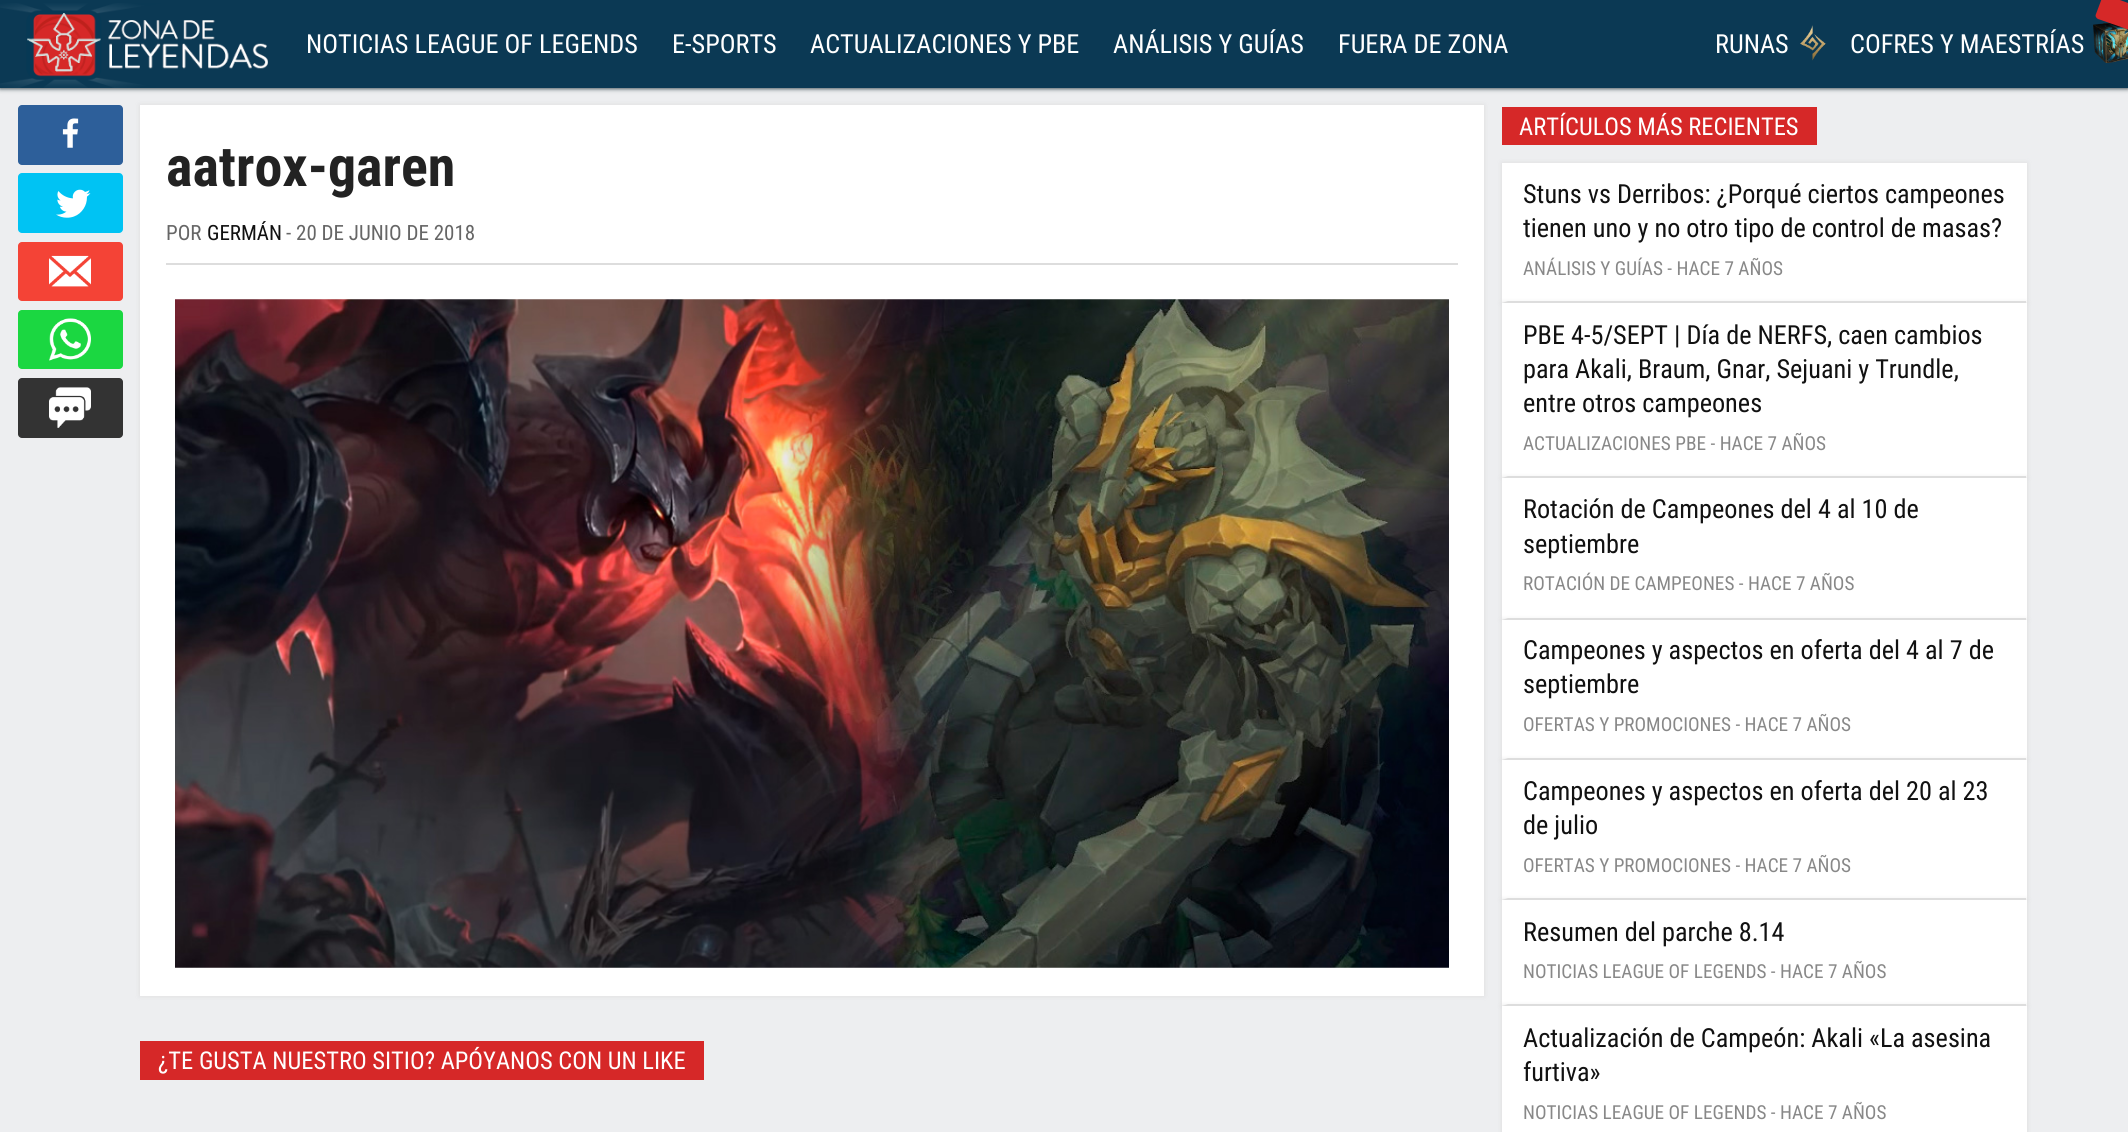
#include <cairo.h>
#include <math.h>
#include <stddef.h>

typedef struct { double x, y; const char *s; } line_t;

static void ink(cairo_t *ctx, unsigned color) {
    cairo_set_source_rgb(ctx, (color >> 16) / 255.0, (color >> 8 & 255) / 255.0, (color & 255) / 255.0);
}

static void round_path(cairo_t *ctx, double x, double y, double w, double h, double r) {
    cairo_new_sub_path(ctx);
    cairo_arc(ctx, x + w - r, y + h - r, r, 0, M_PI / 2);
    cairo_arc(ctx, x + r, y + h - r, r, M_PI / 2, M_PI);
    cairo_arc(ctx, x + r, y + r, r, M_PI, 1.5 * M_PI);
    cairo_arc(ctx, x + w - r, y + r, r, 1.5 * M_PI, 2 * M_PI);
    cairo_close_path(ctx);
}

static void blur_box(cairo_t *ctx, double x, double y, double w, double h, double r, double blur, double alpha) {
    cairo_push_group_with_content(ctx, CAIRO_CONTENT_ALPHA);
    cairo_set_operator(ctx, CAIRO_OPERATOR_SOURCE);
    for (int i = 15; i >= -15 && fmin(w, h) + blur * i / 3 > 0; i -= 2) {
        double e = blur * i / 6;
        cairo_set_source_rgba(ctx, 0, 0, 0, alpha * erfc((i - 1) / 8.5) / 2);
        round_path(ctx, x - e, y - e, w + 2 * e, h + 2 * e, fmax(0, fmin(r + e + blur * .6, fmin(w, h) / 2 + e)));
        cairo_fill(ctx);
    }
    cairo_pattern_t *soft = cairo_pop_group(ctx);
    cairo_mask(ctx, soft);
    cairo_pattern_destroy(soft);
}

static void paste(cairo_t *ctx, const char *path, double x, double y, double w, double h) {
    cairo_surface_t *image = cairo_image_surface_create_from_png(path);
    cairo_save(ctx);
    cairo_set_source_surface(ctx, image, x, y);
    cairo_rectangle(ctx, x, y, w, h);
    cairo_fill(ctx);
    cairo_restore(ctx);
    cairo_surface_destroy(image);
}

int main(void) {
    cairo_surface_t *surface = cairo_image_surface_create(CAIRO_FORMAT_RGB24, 2128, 1132);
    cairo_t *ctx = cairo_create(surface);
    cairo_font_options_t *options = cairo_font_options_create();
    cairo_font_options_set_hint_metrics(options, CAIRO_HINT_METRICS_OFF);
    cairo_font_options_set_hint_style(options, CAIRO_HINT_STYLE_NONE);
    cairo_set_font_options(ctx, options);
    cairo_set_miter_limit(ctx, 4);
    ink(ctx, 0xEDEEF0);
    cairo_paint(ctx);
    ink(ctx, 0x01161E);
    blur_box(ctx, 0, 0, 2128, 88, 0, 2.5, 1);
    ink(ctx, 0x0B3954);
    cairo_rectangle(ctx, 0, 0, 2128, 88);
    cairo_fill(ctx);
    paste(ctx, "media/1.png", 0, 3, 268, 85);
    cairo_select_font_face(ctx, "Roboto Condensed", CAIRO_FONT_SLANT_NORMAL, CAIRO_FONT_WEIGHT_NORMAL);
    cairo_set_font_size(ctx, 26.25);
    ink(ctx, 0xFFFFFF);
    {
        static const line_t items[] = {
            {306, 53, "NOTICIAS LEAGUE OF LEGENDS"},
            {672, 53, "E-SPORTS"},
            {810, 53, "ACTUALIZACIONES Y PBE"},
            {1113, 53, "ANÁLISIS Y GUÍAS"},
            {1338, 53, "FUERA DE ZONA"},
        };
        for (size_t i = 0; i < sizeof items / sizeof *items; i++) {
            cairo_move_to(ctx, items[i].x, items[i].y);
            cairo_show_text(ctx, items[i].s);
        }
    }
    paste(ctx, "media/3.png", 2093, 23, 35, 40);
    ink(ctx, 0xD62828);
    cairo_new_path(ctx);
    cairo_move_to(ctx, 2106, -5);
    cairo_line_to(ctx, 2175, 20);
    cairo_curve_to(ctx, 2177, 21, 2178, 23, 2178, 24);
    cairo_line_to(ctx, 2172, 41);
    cairo_curve_to(ctx, 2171, 43, 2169, 44, 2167, 43);
    cairo_line_to(ctx, 2098, 19);
    cairo_curve_to(ctx, 2096, 18, 2095, 16, 2096, 14);
    cairo_line_to(ctx, 2102, -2);
    cairo_curve_to(ctx, 2102, -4, 2104, -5, 2106, -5);
    cairo_close_path(ctx);
    cairo_fill(ctx);
    ink(ctx, 0xFFFFFF);
    cairo_move_to(ctx, 1715, 53);
    cairo_show_text(ctx, "RUNAS");
    paste(ctx, "media/2.png", 1800, 25, 26, 36);
    cairo_move_to(ctx, 1850, 53);
    cairo_show_text(ctx, "COFRES Y MAESTRÍAS");
    ink(ctx, 0xDDDDDD);
    blur_box(ctx, 140, 105, 1344, 891, 0, 2.5, 1);
    ink(ctx, 0xFFFFFF);
    cairo_rectangle(ctx, 140, 105, 1344, 891);
    cairo_fill(ctx);
    ink(ctx, 0x2D5F9A);
    round_path(ctx, 18, 105, 105, 60, 4);
    cairo_fill(ctx);
    paste(ctx, "media/4.png", 62, 118, 17, 30);
    ink(ctx, 0x00C3F3);
    round_path(ctx, 18, 173, 105, 60, 4);
    cairo_fill(ctx);
    paste(ctx, "media/5.png", 56, 189, 35, 29);
    ink(ctx, 0xF44336);
    round_path(ctx, 18, 242, 105, 59, 4);
    cairo_fill(ctx);
    paste(ctx, "media/6.png", 49, 255, 42, 32);
    ink(ctx, 0x1BD741);
    round_path(ctx, 18, 310, 105, 59, 4);
    cairo_fill(ctx);
    paste(ctx, "media/7.png", 49, 318, 42, 43);
    ink(ctx, 0x333333);
    round_path(ctx, 18, 378, 105, 60, 4);
    cairo_fill(ctx);
    paste(ctx, "media/8.png", 49, 387, 42, 41);
    cairo_select_font_face(ctx, "Roboto Condensed", CAIRO_FONT_SLANT_NORMAL, CAIRO_FONT_WEIGHT_BOLD);
    cairo_set_font_size(ctx, 56);
    ink(ctx, 0x222222);
    cairo_move_to(ctx, 166, 186);
    cairo_show_text(ctx, "aatrox-garen");
    ink(ctx, 0xDDDDDD);
    cairo_rectangle(ctx, 166, 263, 1292, 2);
    cairo_fill(ctx);
    cairo_select_font_face(ctx, "Roboto Condensed", CAIRO_FONT_SLANT_NORMAL, CAIRO_FONT_WEIGHT_NORMAL);
    cairo_set_font_size(ctx, 21);
    ink(ctx, 0x666666);
    cairo_move_to(ctx, 166, 240);
    cairo_show_text(ctx, "POR");
    ink(ctx, 0x111111);
    cairo_move_to(ctx, 207, 240);
    cairo_show_text(ctx, "GERMÁN");
    ink(ctx, 0x666666);
    cairo_move_to(ctx, 286, 240);
    cairo_show_text(ctx, "- 20 DE JUNIO DE 2018");
    paste(ctx, "media/9.png", 175, 299, 1274, 669);
    ink(ctx, 0xD62828);
    cairo_rectangle(ctx, 140, 1041, 564, 39);
    cairo_fill(ctx);
    cairo_set_font_size(ctx, 24.5);
    ink(ctx, 0xFFFFFF);
    cairo_move_to(ctx, 158, 1069);
    cairo_show_text(ctx, "¿TE GUSTA NUESTRO SITIO? APÓYANOS CON UN LIKE");
    ink(ctx, 0xD62828);
    cairo_rectangle(ctx, 1502, 107, 315, 38);
    cairo_fill(ctx);
    ink(ctx, 0xFFFFFF);
    cairo_move_to(ctx, 1519, 135);
    cairo_show_text(ctx, "ARTÍCULOS MÁS RECIENTES");
    ink(ctx, 0xDDDDDD);
    blur_box(ctx, 1502, 163, 525, 140, 0, 2.5, 1);
    ink(ctx, 0xFFFFFF);
    cairo_rectangle(ctx, 1502, 163, 525, 140);
    cairo_fill(ctx);
    ink(ctx, 0xDDDDDD);
    cairo_new_path(ctx);
    cairo_move_to(ctx, 2026, 303);
    cairo_line_to(ctx, 1502, 303);
    cairo_line_to(ctx, 1508, 301);
    cairo_line_to(ctx, 2026, 301);
    cairo_close_path(ctx);
    cairo_fill(ctx);
    cairo_set_font_size(ctx, 26.25);
    ink(ctx, 0x111111);
    cairo_move_to(ctx, 1523, 203);
    cairo_show_text(ctx, "Stuns vs Derribos: ¿Porqué ciertos campeones");
    cairo_move_to(ctx, 1523, 237);
    cairo_show_text(ctx, "tienen uno y no otro tipo de control de masas?");
    cairo_set_font_size(ctx, 19.25);
    ink(ctx, 0x888888);
    cairo_move_to(ctx, 1523, 275);
    cairo_show_text(ctx, "ANÁLISIS Y GUÍAS - HACE 7 AÑOS");
    ink(ctx, 0xDDDDDD);
    blur_box(ctx, 1502, 303, 525, 175, 0, 2.5, 1);
    ink(ctx, 0xFFFFFF);
    cairo_rectangle(ctx, 1502, 303, 525, 175);
    cairo_fill(ctx);
    ink(ctx, 0xDDDDDD);
    cairo_new_path(ctx);
    cairo_move_to(ctx, 2026, 478);
    cairo_line_to(ctx, 1502, 478);
    cairo_line_to(ctx, 1508, 476);
    cairo_line_to(ctx, 2026, 476);
    cairo_close_path(ctx);
    cairo_fill(ctx);
    cairo_set_font_size(ctx, 26.25);
    ink(ctx, 0x111111);
    {
        static const line_t items[] = {
            {1523, 344, "PBE 4-5/SEPT | Día de NERFS, caen cambios"},
            {1523, 378, "para Akali, Braum, Gnar, Sejuani y Trundle,"},
            {1523, 412, "entre otros campeones"},
        };
        for (size_t i = 0; i < sizeof items / sizeof *items; i++) {
            cairo_move_to(ctx, items[i].x, items[i].y);
            cairo_show_text(ctx, items[i].s);
        }
    }
    cairo_set_font_size(ctx, 19.25);
    ink(ctx, 0x888888);
    cairo_move_to(ctx, 1523, 450);
    cairo_show_text(ctx, "ACTUALIZACIONES PBE - HACE 7 AÑOS");
    ink(ctx, 0xDDDDDD);
    blur_box(ctx, 1502, 478, 525, 142, 0, 2.5, 1);
    ink(ctx, 0xFFFFFF);
    cairo_rectangle(ctx, 1502, 478, 525, 142);
    cairo_fill(ctx);
    ink(ctx, 0xDDDDDD);
    cairo_new_path(ctx);
    cairo_move_to(ctx, 2026, 620);
    cairo_line_to(ctx, 1502, 620);
    cairo_line_to(ctx, 1508, 618);
    cairo_line_to(ctx, 2026, 618);
    cairo_close_path(ctx);
    cairo_fill(ctx);
    cairo_set_font_size(ctx, 26.25);
    ink(ctx, 0x111111);
    cairo_move_to(ctx, 1523, 518);
    cairo_show_text(ctx, "Rotación de Campeones del 4 al 10 de");
    cairo_move_to(ctx, 1523, 553);
    cairo_show_text(ctx, "septiembre");
    cairo_set_font_size(ctx, 19.25);
    ink(ctx, 0x888888);
    cairo_move_to(ctx, 1523, 590);
    cairo_show_text(ctx, "ROTACIÓN DE CAMPEONES - HACE 7 AÑOS");
    ink(ctx, 0xDDDDDD);
    blur_box(ctx, 1502, 620, 525, 140, 0, 2.5, 1);
    ink(ctx, 0xFFFFFF);
    cairo_rectangle(ctx, 1502, 620, 525, 140);
    cairo_fill(ctx);
    ink(ctx, 0xDDDDDD);
    cairo_new_path(ctx);
    cairo_move_to(ctx, 2026, 760);
    cairo_line_to(ctx, 1502, 760);
    cairo_line_to(ctx, 1508, 758);
    cairo_line_to(ctx, 2026, 758);
    cairo_close_path(ctx);
    cairo_fill(ctx);
    cairo_set_font_size(ctx, 26.25);
    ink(ctx, 0x111111);
    cairo_move_to(ctx, 1523, 659);
    cairo_show_text(ctx, "Campeones y aspectos en oferta del 4 al 7 de");
    cairo_move_to(ctx, 1523, 693);
    cairo_show_text(ctx, "septiembre");
    cairo_set_font_size(ctx, 19.25);
    ink(ctx, 0x888888);
    cairo_move_to(ctx, 1523, 731);
    cairo_show_text(ctx, "OFERTAS Y PROMOCIONES - HACE 7 AÑOS");
    ink(ctx, 0xDDDDDD);
    blur_box(ctx, 1502, 760, 525, 140, 0, 2.5, 1);
    ink(ctx, 0xFFFFFF);
    cairo_rectangle(ctx, 1502, 760, 525, 140);
    cairo_fill(ctx);
    ink(ctx, 0xDDDDDD);
    cairo_new_path(ctx);
    cairo_move_to(ctx, 2026, 900);
    cairo_line_to(ctx, 1502, 900);
    cairo_line_to(ctx, 1508, 898);
    cairo_line_to(ctx, 2026, 898);
    cairo_close_path(ctx);
    cairo_fill(ctx);
    cairo_set_font_size(ctx, 26.25);
    ink(ctx, 0x111111);
    cairo_move_to(ctx, 1523, 800);
    cairo_show_text(ctx, "Campeones y aspectos en oferta del 20 al 23");
    cairo_move_to(ctx, 1523, 834);
    cairo_show_text(ctx, "de julio");
    cairo_set_font_size(ctx, 19.25);
    ink(ctx, 0x888888);
    cairo_move_to(ctx, 1523, 872);
    cairo_show_text(ctx, "OFERTAS Y PROMOCIONES - HACE 7 AÑOS");
    ink(ctx, 0xDDDDDD);
    blur_box(ctx, 1502, 900, 525, 106, 0, 2.5, 1);
    ink(ctx, 0xFFFFFF);
    cairo_rectangle(ctx, 1502, 900, 525, 106);
    cairo_fill(ctx);
    ink(ctx, 0xDDDDDD);
    cairo_new_path(ctx);
    cairo_move_to(ctx, 2026, 1006);
    cairo_line_to(ctx, 1502, 1006);
    cairo_line_to(ctx, 1508, 1004);
    cairo_line_to(ctx, 2026, 1004);
    cairo_close_path(ctx);
    cairo_fill(ctx);
    cairo_set_font_size(ctx, 26.25);
    ink(ctx, 0x111111);
    cairo_move_to(ctx, 1523, 941);
    cairo_show_text(ctx, "Resumen del parche 8.14");
    cairo_set_font_size(ctx, 19.25);
    ink(ctx, 0x888888);
    cairo_move_to(ctx, 1523, 978);
    cairo_show_text(ctx, "NOTICIAS LEAGUE OF LEGENDS - HACE 7 AÑOS");
    ink(ctx, 0xDDDDDD);
    blur_box(ctx, 1502, 1006, 525, 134, 0, 2.5, 1);
    ink(ctx, 0xFFFFFF);
    cairo_rectangle(ctx, 1502, 1006, 525, 126);
    cairo_fill(ctx);
    cairo_set_font_size(ctx, 26.25);
    ink(ctx, 0x111111);
    cairo_move_to(ctx, 1523, 1047);
    cairo_show_text(ctx, "Actualización de Campeón: Akali «La asesina");
    cairo_move_to(ctx, 1523, 1081);
    cairo_show_text(ctx, "furtiva»");
    cairo_set_font_size(ctx, 19.25);
    ink(ctx, 0x888888);
    cairo_move_to(ctx, 1523, 1119);
    cairo_show_text(ctx, "NOTICIAS LEAGUE OF LEGENDS - HACE 7 AÑOS");
    cairo_surface_write_to_png(surface, "image.png");
    cairo_font_options_destroy(options);
    cairo_destroy(ctx);
    cairo_surface_destroy(surface);
    return 0;
}
